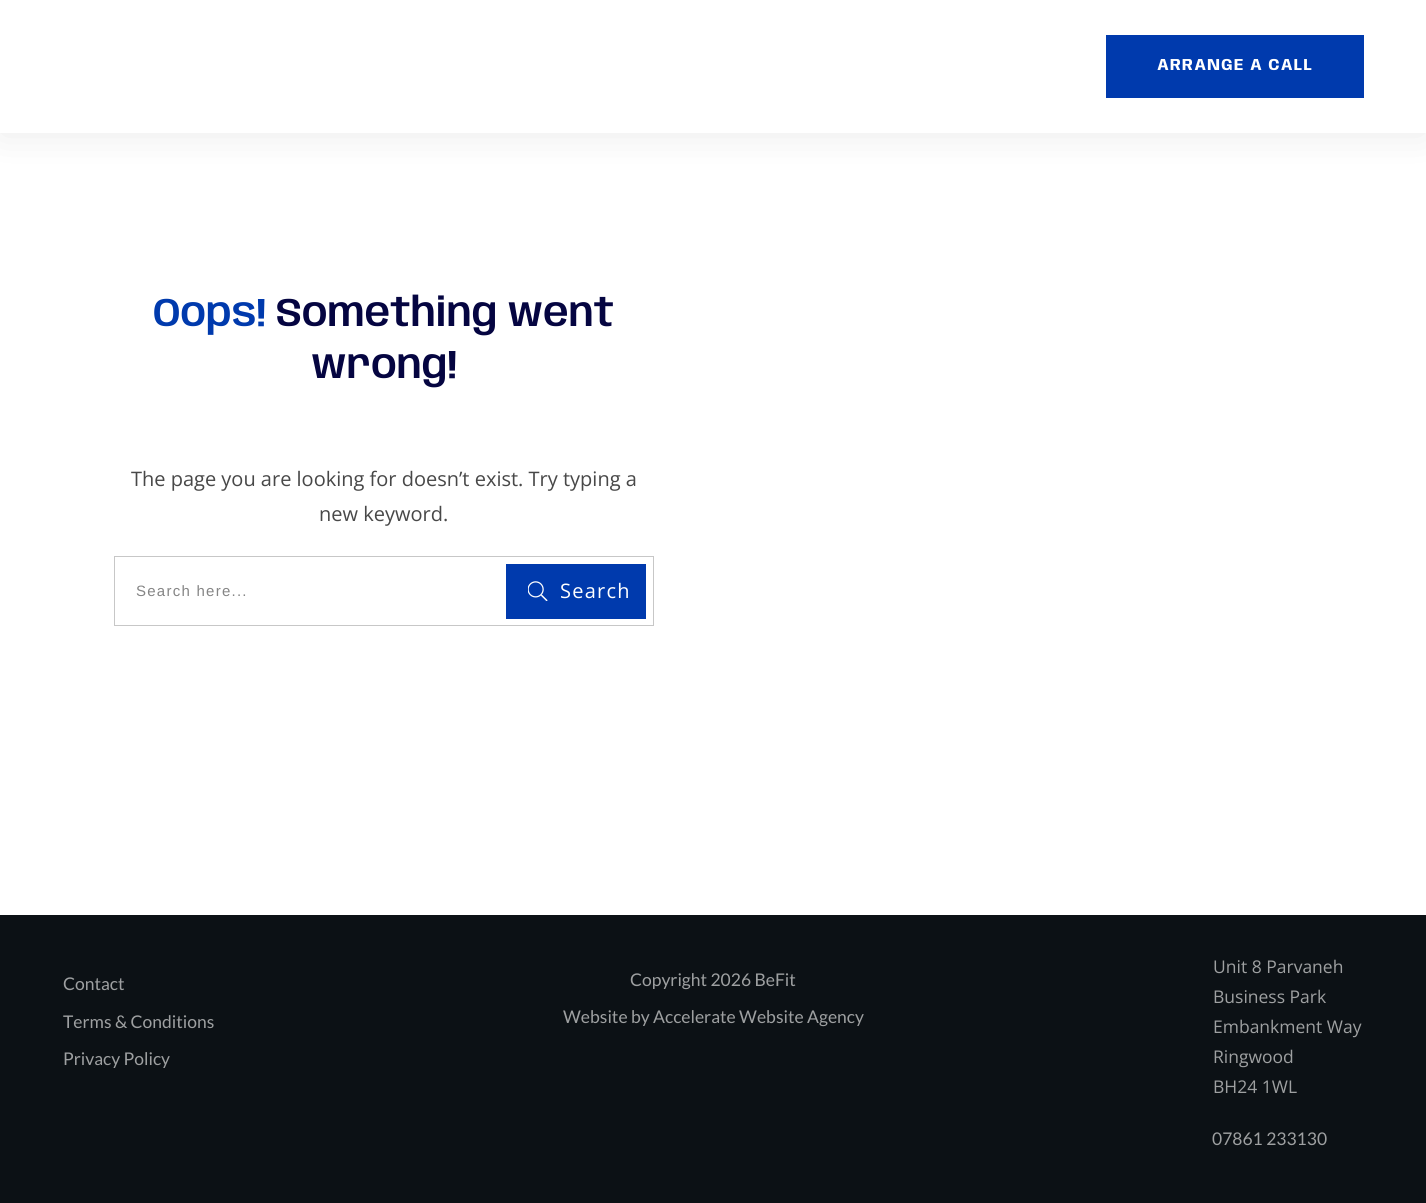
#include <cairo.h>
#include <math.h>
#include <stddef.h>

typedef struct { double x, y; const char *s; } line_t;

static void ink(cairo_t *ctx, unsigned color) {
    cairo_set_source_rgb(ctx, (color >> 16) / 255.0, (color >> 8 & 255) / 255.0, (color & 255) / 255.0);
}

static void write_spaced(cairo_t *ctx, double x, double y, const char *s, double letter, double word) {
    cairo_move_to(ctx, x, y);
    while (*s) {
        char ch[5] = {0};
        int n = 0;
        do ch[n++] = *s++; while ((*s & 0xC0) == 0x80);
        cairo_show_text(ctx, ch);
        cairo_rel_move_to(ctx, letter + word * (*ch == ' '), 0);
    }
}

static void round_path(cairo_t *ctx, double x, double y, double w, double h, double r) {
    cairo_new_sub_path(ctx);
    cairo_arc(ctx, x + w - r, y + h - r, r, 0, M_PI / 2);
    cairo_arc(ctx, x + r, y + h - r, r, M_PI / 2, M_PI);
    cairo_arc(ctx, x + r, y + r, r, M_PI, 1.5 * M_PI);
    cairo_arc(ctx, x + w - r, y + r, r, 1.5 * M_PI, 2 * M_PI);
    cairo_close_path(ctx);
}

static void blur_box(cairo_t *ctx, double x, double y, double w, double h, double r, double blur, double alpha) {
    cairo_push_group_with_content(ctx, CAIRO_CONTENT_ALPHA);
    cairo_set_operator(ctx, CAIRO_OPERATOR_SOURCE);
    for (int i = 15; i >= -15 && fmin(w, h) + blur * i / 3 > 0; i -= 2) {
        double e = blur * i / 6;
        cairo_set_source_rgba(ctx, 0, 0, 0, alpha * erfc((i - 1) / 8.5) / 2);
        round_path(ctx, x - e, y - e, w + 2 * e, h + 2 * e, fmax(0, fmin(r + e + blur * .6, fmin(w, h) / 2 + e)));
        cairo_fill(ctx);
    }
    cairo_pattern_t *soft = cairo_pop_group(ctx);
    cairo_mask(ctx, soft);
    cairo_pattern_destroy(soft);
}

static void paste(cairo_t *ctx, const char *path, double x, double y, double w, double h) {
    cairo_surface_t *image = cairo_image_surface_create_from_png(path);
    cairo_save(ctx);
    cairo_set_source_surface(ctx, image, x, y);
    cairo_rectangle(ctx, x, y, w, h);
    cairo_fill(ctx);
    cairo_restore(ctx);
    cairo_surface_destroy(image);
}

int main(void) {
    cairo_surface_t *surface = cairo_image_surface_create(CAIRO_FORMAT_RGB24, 1426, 1203);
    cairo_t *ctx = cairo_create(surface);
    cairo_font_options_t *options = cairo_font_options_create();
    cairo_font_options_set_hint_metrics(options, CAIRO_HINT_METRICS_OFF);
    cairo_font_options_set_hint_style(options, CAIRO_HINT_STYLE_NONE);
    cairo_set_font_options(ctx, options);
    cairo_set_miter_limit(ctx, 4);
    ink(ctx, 0xFFFFFF);
    cairo_paint(ctx);
    cairo_save(ctx);
    cairo_set_fill_rule(ctx, CAIRO_FILL_RULE_EVEN_ODD);
    cairo_new_path(ctx);
    cairo_move_to(ctx, 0, 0);
    cairo_line_to(ctx, 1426, 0);
    cairo_line_to(ctx, 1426, 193);
    cairo_line_to(ctx, 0, 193);
    cairo_close_path(ctx);
    cairo_move_to(ctx, 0, 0);
    cairo_line_to(ctx, 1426, 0);
    cairo_line_to(ctx, 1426, 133);
    cairo_line_to(ctx, 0, 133);
    cairo_close_path(ctx);
    cairo_clip(ctx);
    ink(ctx, 0x000000);
    blur_box(ctx, 0, 3, 1426, 132, 0, 19, 0.08);
    cairo_restore(ctx);
    ink(ctx, 0x003AAD);
    cairo_rectangle(ctx, 1106, 35, 258, 63);
    cairo_fill(ctx);
    cairo_select_font_face(ctx, "Anybody", CAIRO_FONT_SLANT_NORMAL, CAIRO_FONT_WEIGHT_BOLD);
    cairo_set_font_size(ctx, 16.25);
    ink(ctx, 0xFFFFFF);
    write_spaced(ctx, 1157, 70, "ARRANGE A CALL", 1.25, 0);
    cairo_select_font_face(ctx, "Anybody SemiBold", CAIRO_FONT_SLANT_NORMAL, CAIRO_FONT_WEIGHT_NORMAL);
    cairo_set_font_size(ctx, 40);
    ink(ctx, 0x003AAD);
    cairo_move_to(ctx, 153, 326);
    cairo_show_text(ctx, "Oops!");
    ink(ctx, 0x050541);
    cairo_move_to(ctx, 276, 326);
    cairo_show_text(ctx, "Something went");
    cairo_move_to(ctx, 311, 378);
    cairo_show_text(ctx, "wrong!");
    cairo_select_font_face(ctx, "Open Sans", CAIRO_FONT_SLANT_NORMAL, CAIRO_FONT_WEIGHT_NORMAL);
    cairo_set_font_size(ctx, 20);
    ink(ctx, 0x484848);
    cairo_move_to(ctx, 131, 486);
    cairo_show_text(ctx, "The page you are looking for doesn’t exist. Try typing a");
    cairo_move_to(ctx, 319, 521);
    cairo_show_text(ctx, "new keyword.");
    cairo_rectangle(ctx, 114.5, 556.5, 539, 69);
    ink(ctx, 0xC7C7C7);
    cairo_set_line_width(ctx, 1);
    cairo_stroke(ctx);
    cairo_select_font_face(ctx, "Liberation Sans", CAIRO_FONT_SLANT_NORMAL, CAIRO_FONT_WEIGHT_NORMAL);
    cairo_set_font_size(ctx, 15);
    ink(ctx, 0x858585);
    write_spaced(ctx, 136, 596, "Search here...", 1.25, 0);
    ink(ctx, 0x003AAD);
    cairo_rectangle(ctx, 506, 564, 140, 55);
    cairo_fill(ctx);
    paste(ctx, "media/1.png", 528, 581, 20, 20);
    cairo_select_font_face(ctx, "Open Sans", CAIRO_FONT_SLANT_NORMAL, CAIRO_FONT_WEIGHT_NORMAL);
    cairo_set_font_size(ctx, 20);
    ink(ctx, 0xFFFFFF);
    write_spaced(ctx, 560, 598, "Search", 1.25, 0);
    ink(ctx, 0x0C1115);
    cairo_rectangle(ctx, 0, 915, 1426, 288);
    cairo_fill(ctx);
    cairo_select_font_face(ctx, "Lato", CAIRO_FONT_SLANT_NORMAL, CAIRO_FONT_WEIGHT_NORMAL);
    cairo_set_font_size(ctx, 17.5);
    ink(ctx, 0x9EA0A1);
    {
        static const line_t items[] = {
            {63, 990, "Contact"},
            {63, 1028, "Terms & Conditions"},
            {63, 1065, "Privacy Policy"},
            {630, 986, "Copyright 2026 BeFit"},
            {563, 1023, "Website by Accelerate Website Agency"},
        };
        for (size_t i = 0; i < sizeof items / sizeof *items; i++) {
            cairo_move_to(ctx, items[i].x, items[i].y);
            cairo_show_text(ctx, items[i].s);
        }
    }
    cairo_select_font_face(ctx, "Open Sans", CAIRO_FONT_SLANT_NORMAL, CAIRO_FONT_WEIGHT_NORMAL);
    {
        static const line_t items[] = {
            {1213, 973, "Unit 8 Parvaneh"},
            {1213, 1003, "Business Park"},
            {1213, 1033, "Embankment Way"},
            {1213, 1063, "Ringwood"},
            {1213, 1093, "BH24 1WL"},
        };
        for (size_t i = 0; i < sizeof items / sizeof *items; i++) {
            cairo_move_to(ctx, items[i].x, items[i].y);
            cairo_show_text(ctx, items[i].s);
        }
    }
    cairo_select_font_face(ctx, "Lato", CAIRO_FONT_SLANT_NORMAL, CAIRO_FONT_WEIGHT_NORMAL);
    cairo_move_to(ctx, 1212, 1145);
    cairo_show_text(ctx, "07861 233130");
    cairo_surface_write_to_png(surface, "image.png");
    cairo_font_options_destroy(options);
    cairo_destroy(ctx);
    cairo_surface_destroy(surface);
    return 0;
}
